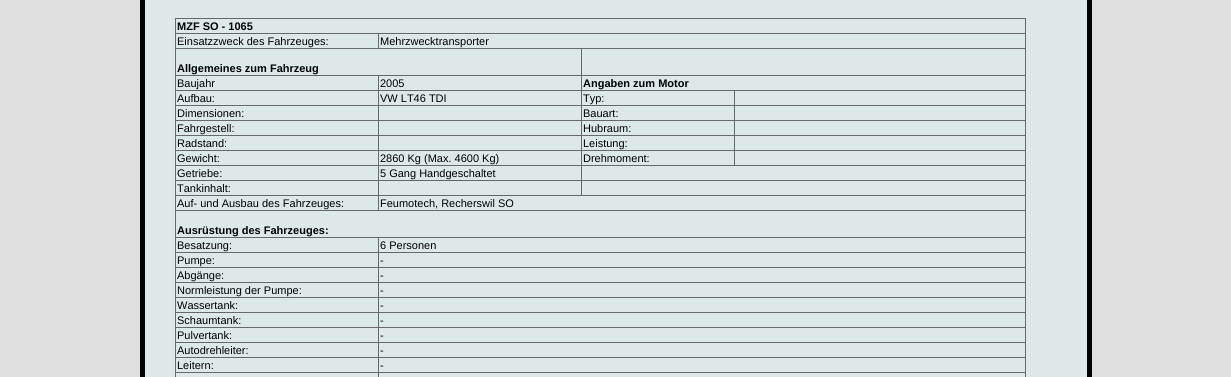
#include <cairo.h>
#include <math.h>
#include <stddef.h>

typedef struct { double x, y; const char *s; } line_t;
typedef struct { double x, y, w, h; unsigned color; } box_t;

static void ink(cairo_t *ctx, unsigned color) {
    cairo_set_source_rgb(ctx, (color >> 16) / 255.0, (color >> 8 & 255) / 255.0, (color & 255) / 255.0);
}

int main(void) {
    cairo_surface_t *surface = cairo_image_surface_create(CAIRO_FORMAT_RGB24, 1231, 377);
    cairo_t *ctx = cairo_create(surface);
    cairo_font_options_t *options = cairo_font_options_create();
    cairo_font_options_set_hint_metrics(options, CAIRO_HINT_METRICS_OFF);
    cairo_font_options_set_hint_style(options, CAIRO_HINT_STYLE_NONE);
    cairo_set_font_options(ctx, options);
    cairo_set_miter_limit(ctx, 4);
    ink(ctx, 0xE0E0E0);
    cairo_paint(ctx);
    cairo_rectangle(ctx, 140.5, -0.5, 951, 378);
    ink(ctx, 0x000000);
    cairo_set_line_width(ctx, 1);
    cairo_stroke(ctx);
    {
        static const box_t items[] = {
            {145, 0, 942, 377, 0xDDE9E8},
            {1087, 0, 4, 377, 0x000000},
            {141, 0, 4, 377, 0x000000},
            {175, 18, 851, 1, 0x686868},
            {1025, 18, 1, 359, 0x686868},
            {175, 18, 1, 359, 0x686868},
        };
        for (size_t i = 0; i < sizeof items / sizeof *items; i++) {
            ink(ctx, items[i].color);
            cairo_rectangle(ctx, items[i].x, items[i].y, items[i].w, items[i].h);
            cairo_fill(ctx);
        }
    }
    cairo_select_font_face(ctx, "Liberation Sans", CAIRO_FONT_SLANT_NORMAL, CAIRO_FONT_WEIGHT_BOLD);
    cairo_set_font_size(ctx, 11);
    ink(ctx, 0x000000);
    cairo_move_to(ctx, 177, 30);
    cairo_show_text(ctx, "MZF SO - 1065");
    {
        static const box_t items[] = {
            {378, 33, 648, 1, 0x686868},
            {581, 48, 445, 1, 0x686868},
            {581, 75, 445, 1, 0x686868},
            {734, 90, 292, 1, 0x686868},
            {734, 105, 292, 1, 0x686868},
            {734, 120, 292, 1, 0x686868},
            {734, 135, 292, 1, 0x686868},
            {734, 150, 292, 1, 0x686868},
            {581, 165, 445, 1, 0x686868},
            {734, 150, 1, 16, 0x686868},
            {581, 150, 154, 1, 0x686868},
            {734, 135, 1, 16, 0x686868},
            {581, 135, 154, 1, 0x686868},
            {734, 120, 1, 16, 0x686868},
            {581, 120, 154, 1, 0x686868},
            {734, 105, 1, 16, 0x686868},
            {581, 105, 154, 1, 0x686868},
            {734, 90, 1, 16, 0x686868},
            {581, 90, 154, 1, 0x686868},
            {581, 180, 445, 1, 0x686868},
            {378, 195, 648, 1, 0x686868},
            {581, 180, 1, 16, 0x686868},
            {378, 180, 204, 1, 0x686868},
            {581, 165, 1, 16, 0x686868},
            {378, 165, 204, 1, 0x686868},
            {581, 150, 1, 16, 0x686868},
            {378, 150, 204, 1, 0x686868},
            {581, 135, 1, 16, 0x686868},
            {378, 135, 204, 1, 0x686868},
            {581, 120, 1, 16, 0x686868},
            {378, 120, 204, 1, 0x686868},
            {581, 105, 1, 16, 0x686868},
            {378, 105, 204, 1, 0x686868},
            {581, 90, 1, 16, 0x686868},
            {378, 90, 204, 1, 0x686868},
            {581, 75, 1, 16, 0x686868},
            {378, 75, 204, 1, 0x686868},
            {581, 48, 1, 28, 0x686868},
            {175, 48, 407, 1, 0x686868},
            {378, 33, 1, 16, 0x686868},
            {175, 33, 204, 1, 0x686868},
        };
        for (size_t i = 0; i < sizeof items / sizeof *items; i++) {
            ink(ctx, items[i].color);
            cairo_rectangle(ctx, items[i].x, items[i].y, items[i].w, items[i].h);
            cairo_fill(ctx);
        }
    }
    cairo_select_font_face(ctx, "Liberation Sans", CAIRO_FONT_SLANT_NORMAL, CAIRO_FONT_WEIGHT_NORMAL);
    ink(ctx, 0x000000);
    cairo_move_to(ctx, 177, 45);
    cairo_show_text(ctx, "Einsatzzweck des Fahrzeuges:");
    cairo_move_to(ctx, 380, 45);
    cairo_show_text(ctx, "Mehrzwecktransporter");
    cairo_select_font_face(ctx, "Liberation Sans", CAIRO_FONT_SLANT_NORMAL, CAIRO_FONT_WEIGHT_BOLD);
    cairo_move_to(ctx, 177, 72);
    cairo_show_text(ctx, "Allgemeines zum Fahrzeug");
    {
        static const box_t items[] = {
            {175, 210, 851, 1, 0x686868},
            {378, 195, 1, 16, 0x686868},
            {175, 195, 204, 1, 0x686868},
            {378, 180, 1, 16, 0x686868},
            {175, 180, 204, 1, 0x686868},
            {378, 165, 1, 16, 0x686868},
            {175, 165, 204, 1, 0x686868},
            {378, 150, 1, 16, 0x686868},
            {175, 150, 204, 1, 0x686868},
            {378, 135, 1, 16, 0x686868},
            {175, 135, 204, 1, 0x686868},
            {378, 120, 1, 16, 0x686868},
            {175, 120, 204, 1, 0x686868},
            {378, 105, 1, 16, 0x686868},
            {175, 105, 204, 1, 0x686868},
            {378, 90, 1, 16, 0x686868},
            {175, 90, 204, 1, 0x686868},
            {378, 75, 1, 16, 0x686868},
            {175, 75, 204, 1, 0x686868},
        };
        for (size_t i = 0; i < sizeof items / sizeof *items; i++) {
            ink(ctx, items[i].color);
            cairo_rectangle(ctx, items[i].x, items[i].y, items[i].w, items[i].h);
            cairo_fill(ctx);
        }
    }
    cairo_select_font_face(ctx, "Liberation Sans", CAIRO_FONT_SLANT_NORMAL, CAIRO_FONT_WEIGHT_NORMAL);
    ink(ctx, 0x000000);
    cairo_move_to(ctx, 177, 87);
    cairo_show_text(ctx, "Baujahr");
    cairo_move_to(ctx, 380, 87);
    cairo_show_text(ctx, "2005");
    cairo_select_font_face(ctx, "Liberation Sans", CAIRO_FONT_SLANT_NORMAL, CAIRO_FONT_WEIGHT_BOLD);
    cairo_move_to(ctx, 583, 87);
    cairo_show_text(ctx, "Angaben zum Motor");
    cairo_select_font_face(ctx, "Liberation Sans", CAIRO_FONT_SLANT_NORMAL, CAIRO_FONT_WEIGHT_NORMAL);
    {
        static const line_t items[] = {
            {177, 102, "Aufbau:"},
            {380, 102, "VW LT46 TDI"},
            {583, 102, "Typ:"},
            {177, 117, "Dimensionen:"},
            {583, 117, "Bauart:"},
            {177, 132, "Fahrgestell:"},
            {583, 132, "Hubraum:"},
            {177, 147, "Radstand:"},
            {583, 147, "Leistung:"},
            {177, 162, "Gewicht:"},
            {380, 162, "2860 Kg (Max. 4600 Kg)"},
            {583, 162, "Drehmoment:"},
            {177, 177, "Getriebe:"},
            {380, 177, "5 Gang Handgeschaltet"},
            {177, 192, "Tankinhalt:"},
            {177, 207, "Auf- und Ausbau des Fahrzeuges:"},
            {380, 207, "Feumotech, Recherswil SO"},
        };
        for (size_t i = 0; i < sizeof items / sizeof *items; i++) {
            cairo_move_to(ctx, items[i].x, items[i].y);
            cairo_show_text(ctx, items[i].s);
        }
    }
    cairo_select_font_face(ctx, "Liberation Sans", CAIRO_FONT_SLANT_NORMAL, CAIRO_FONT_WEIGHT_BOLD);
    cairo_move_to(ctx, 177, 234);
    cairo_show_text(ctx, "Ausrüstung des Fahrzeuges:");
    {
        static const box_t items[] = {
            {378, 237, 648, 1, 0x686868},
            {378, 252, 648, 1, 0x686868},
            {378, 267, 648, 1, 0x686868},
            {378, 282, 648, 1, 0x686868},
            {378, 297, 648, 1, 0x686868},
            {378, 312, 648, 1, 0x686868},
            {378, 327, 648, 1, 0x686868},
            {378, 342, 648, 1, 0x686868},
            {378, 357, 648, 1, 0x686868},
            {378, 372, 648, 1, 0x686868},
            {378, 372, 1, 5, 0x686868},
            {175, 372, 204, 1, 0x686868},
            {378, 357, 1, 16, 0x686868},
            {175, 357, 204, 1, 0x686868},
            {378, 342, 1, 16, 0x686868},
            {175, 342, 204, 1, 0x686868},
            {378, 327, 1, 16, 0x686868},
            {175, 327, 204, 1, 0x686868},
            {378, 312, 1, 16, 0x686868},
            {175, 312, 204, 1, 0x686868},
            {378, 297, 1, 16, 0x686868},
            {175, 297, 204, 1, 0x686868},
            {378, 282, 1, 16, 0x686868},
            {175, 282, 204, 1, 0x686868},
            {378, 267, 1, 16, 0x686868},
            {175, 267, 204, 1, 0x686868},
            {378, 252, 1, 16, 0x686868},
            {175, 252, 204, 1, 0x686868},
            {378, 237, 1, 16, 0x686868},
            {175, 237, 204, 1, 0x686868},
        };
        for (size_t i = 0; i < sizeof items / sizeof *items; i++) {
            ink(ctx, items[i].color);
            cairo_rectangle(ctx, items[i].x, items[i].y, items[i].w, items[i].h);
            cairo_fill(ctx);
        }
    }
    cairo_select_font_face(ctx, "Liberation Sans", CAIRO_FONT_SLANT_NORMAL, CAIRO_FONT_WEIGHT_NORMAL);
    ink(ctx, 0x000000);
    {
        static const line_t items[] = {
            {177, 249, "Besatzung:"},
            {380, 249, "6 Personen"},
            {177, 264, "Pumpe:"},
            {380, 264, "-"},
            {177, 279, "Abgänge:"},
            {380, 279, "-"},
            {177, 294, "Normleistung der Pumpe:"},
            {380, 294, "-"},
            {177, 309, "Wassertank:"},
            {380, 309, "-"},
            {177, 324, "Schaumtank:"},
            {380, 324, "-"},
            {177, 339, "Pulvertank:"},
            {380, 339, "-"},
            {177, 354, "Autodrehleiter:"},
            {380, 354, "-"},
            {177, 369, "Leitern:"},
            {380, 369, "-"},
        };
        for (size_t i = 0; i < sizeof items / sizeof *items; i++) {
            cairo_move_to(ctx, items[i].x, items[i].y);
            cairo_show_text(ctx, items[i].s);
        }
    }
    cairo_surface_write_to_png(surface, "image.png");
    cairo_font_options_destroy(options);
    cairo_destroy(ctx);
    cairo_surface_destroy(surface);
    return 0;
}
